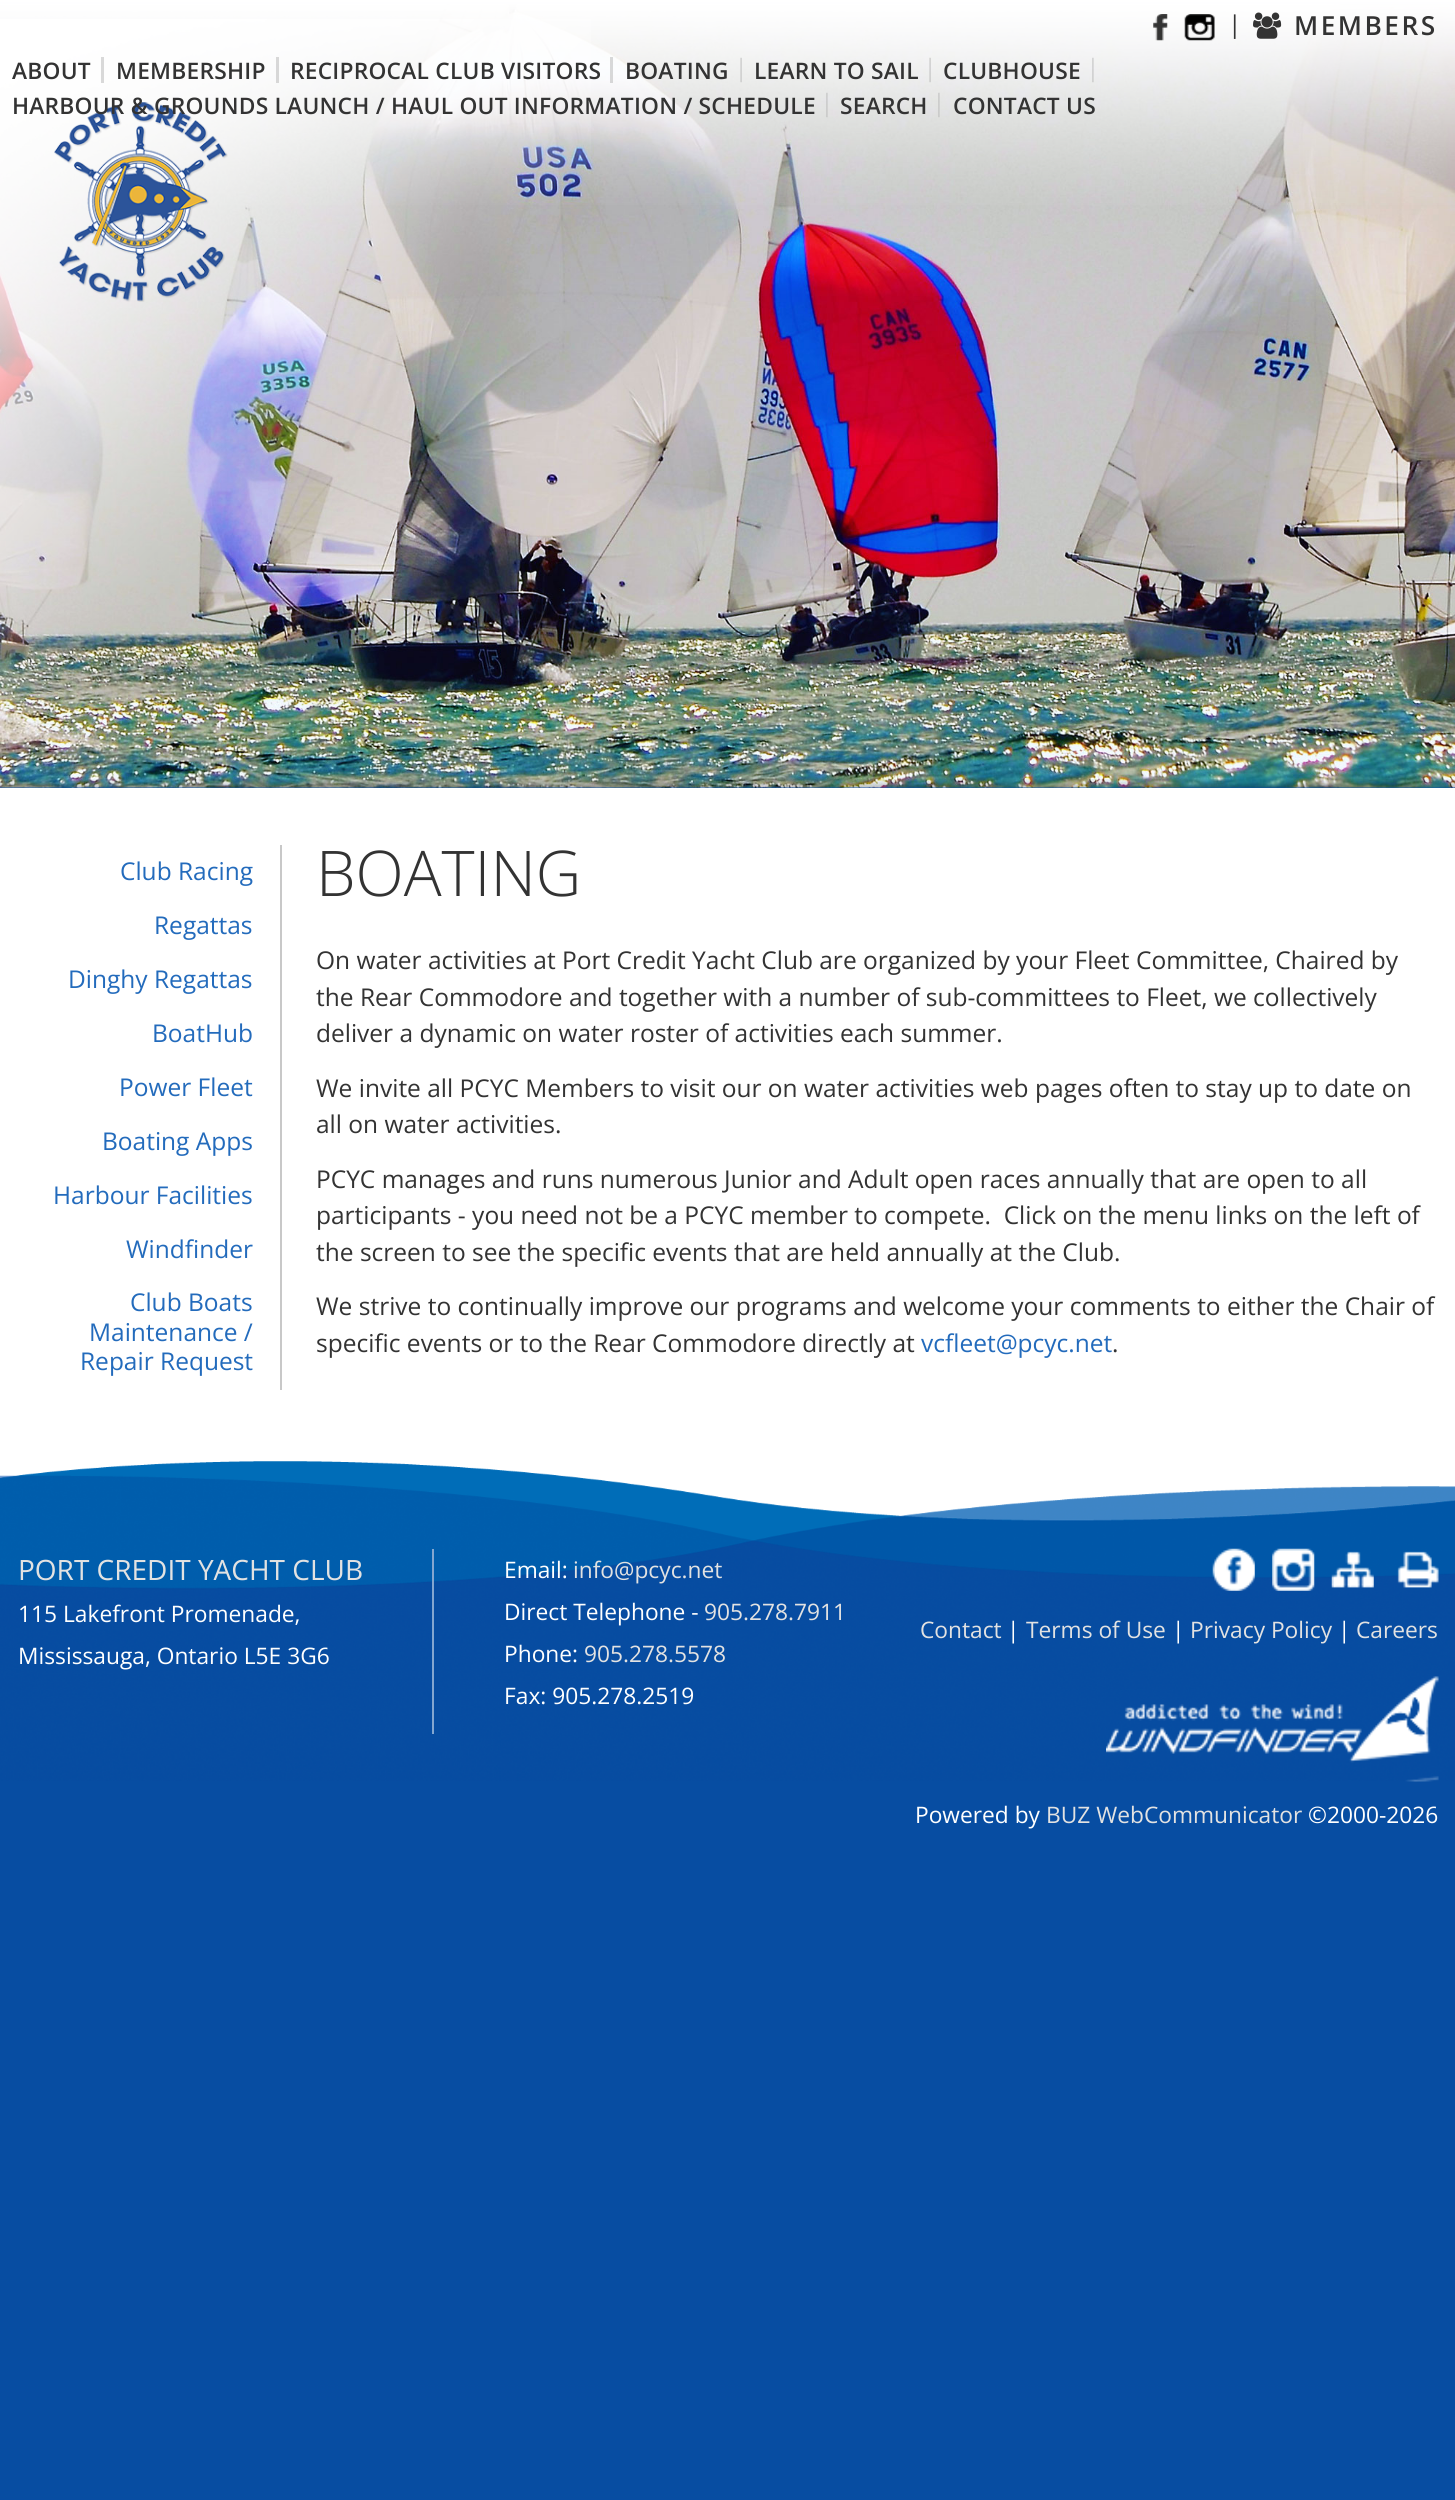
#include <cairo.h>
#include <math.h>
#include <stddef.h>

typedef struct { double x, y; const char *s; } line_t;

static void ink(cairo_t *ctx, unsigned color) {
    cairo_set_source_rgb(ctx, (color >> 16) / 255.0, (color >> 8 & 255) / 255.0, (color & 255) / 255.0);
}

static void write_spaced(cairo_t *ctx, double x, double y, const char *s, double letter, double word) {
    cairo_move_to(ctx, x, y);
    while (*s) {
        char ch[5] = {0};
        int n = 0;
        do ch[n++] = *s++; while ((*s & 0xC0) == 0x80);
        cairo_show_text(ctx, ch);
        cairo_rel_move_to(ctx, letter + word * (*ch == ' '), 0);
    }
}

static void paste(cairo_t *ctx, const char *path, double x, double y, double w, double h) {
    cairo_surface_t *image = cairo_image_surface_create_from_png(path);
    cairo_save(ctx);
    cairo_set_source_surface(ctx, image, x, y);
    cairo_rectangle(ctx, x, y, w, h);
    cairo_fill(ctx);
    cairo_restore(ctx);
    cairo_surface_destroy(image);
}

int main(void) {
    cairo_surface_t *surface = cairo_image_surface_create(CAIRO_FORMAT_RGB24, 1455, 2500);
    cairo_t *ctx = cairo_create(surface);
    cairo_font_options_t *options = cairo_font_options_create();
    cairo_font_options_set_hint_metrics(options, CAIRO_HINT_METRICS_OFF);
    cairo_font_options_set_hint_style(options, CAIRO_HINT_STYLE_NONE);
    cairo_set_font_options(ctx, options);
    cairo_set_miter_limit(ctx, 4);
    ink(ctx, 0x074DA2);
    cairo_paint(ctx);
    paste(ctx, "media/2.png", 0, 4, 1455, 784);
    paste(ctx, "media/1.png", 0, 0, 1455, 205);
    paste(ctx, "media/3.png", 1153, 14, 15, 27);
    paste(ctx, "media/4.png", 1184, 14, 31, 27);
    cairo_select_font_face(ctx, "Open Sans", CAIRO_FONT_SLANT_NORMAL, CAIRO_FONT_WEIGHT_NORMAL);
    cairo_set_font_size(ctx, 24.5);
    ink(ctx, 0x333333);
    cairo_move_to(ctx, 1228, 33);
    cairo_show_text(ctx, "|");
    paste(ctx, "media/5.png", 1253, 12, 29, 27);
    cairo_select_font_face(ctx, "Open Sans SemiBold", CAIRO_FONT_SLANT_NORMAL, CAIRO_FONT_WEIGHT_NORMAL);
    cairo_set_font_size(ctx, 26.25);
    write_spaced(ctx, 1294, 35, "MEMBERS", 2.5, 0);
    paste(ctx, "media/11.png", 0, 19, 591, 741);
    ink(ctx, 0xD9D9D9);
    cairo_rectangle(ctx, 101, 57, 3, 26);
    cairo_fill(ctx);
    cairo_set_font_size(ctx, 22.75);
    ink(ctx, 0x333333);
    write_spaced(ctx, 12, 79, "ABOUT", 0.23, 0);
    cairo_set_source_rgba(ctx, 0.71, 0.71, 0.71, 0.5);
    cairo_rectangle(ctx, 276, 57, 3, 26);
    cairo_fill(ctx);
    ink(ctx, 0x333333);
    write_spaced(ctx, 116, 79, "MEMBERSHIP", 0.23, 0);
    cairo_set_source_rgba(ctx, 0.71, 0.71, 0.71, 0.5);
    cairo_rectangle(ctx, 610, 57, 3, 26);
    cairo_fill(ctx);
    ink(ctx, 0x333333);
    write_spaced(ctx, 290, 79, "RECIPROCAL CLUB VISITORS", 0.23, 0);
    paste(ctx, "media/6.png", 740, 57, 2, 26);
    write_spaced(ctx, 625, 79, "BOATING", 0.23, 0);
    paste(ctx, "media/7.png", 929, 57, 2, 26);
    write_spaced(ctx, 754, 79, "LEARN TO SAIL", 0.23, 0);
    paste(ctx, "media/8.png", 1092, 57, 2, 26);
    write_spaced(ctx, 943, 79, "CLUBHOUSE", 0.23, 0);
    paste(ctx, "media/9.png", 826, 92, 2, 26);
    paste(ctx, "media/12.png", 54, 102, 174, 200);
    write_spaced(ctx, 12, 114, "HARBOUR & GROUNDS LAUNCH / HAUL OUT INFORMATION / SCHEDULE", 0.23, 0);
    paste(ctx, "media/10.png", 938, 92, 2, 26);
    write_spaced(ctx, 840, 114, "SEARCH", 0.23, 0);
    write_spaced(ctx, 953, 114, "CONTACT US", 0.23, 0);
    paste(ctx, "media/13.png", 0, 779, 1455, 9);
    ink(ctx, 0xFFFFFF);
    cairo_rectangle(ctx, 0, 788, 1455, 729);
    cairo_fill(ctx);
    ink(ctx, 0xC8C8C8);
    cairo_rectangle(ctx, 280, 845, 2, 545);
    cairo_fill(ctx);
    cairo_select_font_face(ctx, "Open Sans", CAIRO_FONT_SLANT_NORMAL, CAIRO_FONT_WEIGHT_NORMAL);
    cairo_set_font_size(ctx, 24.5);
    ink(ctx, 0x236BBC);
    {
        static const line_t items[] = {
            {120, 880, "Club Racing"},
            {154, 934, "Regattas"},
            {68, 988, "Dinghy Regattas"},
            {152, 1042, "BoatHub"},
            {119, 1096, "Power Fleet"},
            {102, 1150, "Boating Apps"},
            {53, 1204, "Harbour Facilities"},
            {126, 1258, "Windfinder"},
            {130, 1311, "Club Boats"},
            {89, 1341, "Maintenance /"},
            {80, 1370, "Repair Request"},
        };
        for (size_t i = 0; i < sizeof items / sizeof *items; i++) {
            cairo_move_to(ctx, items[i].x, items[i].y);
            cairo_show_text(ctx, items[i].s);
        }
    }
    cairo_select_font_face(ctx, "Open Sans Light", CAIRO_FONT_SLANT_NORMAL, CAIRO_FONT_WEIGHT_NORMAL);
    cairo_set_font_size(ctx, 63);
    ink(ctx, 0x333333);
    cairo_move_to(ctx, 316, 896);
    cairo_show_text(ctx, "BOATING");
    cairo_select_font_face(ctx, "Open Sans", CAIRO_FONT_SLANT_NORMAL, CAIRO_FONT_WEIGHT_NORMAL);
    cairo_set_font_size(ctx, 24.5);
    {
        static const line_t items[] = {
            {316, 969, "On water activities at Port Credit Yacht Club are organized by your Fleet Committee, Chaired by"},
            {316, 1006, "the Rear Commodore and together with a number of sub-committees to Fleet, we collectively"},
            {316, 1042, "deliver a dynamic on water roster of activities each summer."},
            {316, 1097, "We invite all PCYC Members to visit our on water activities web pages often to stay up to date on"},
            {316, 1133, "all on water activities."},
            {316, 1188, "PCYC manages and runs numerous Junior and Adult open races annually that are open to all"},
            {316, 1224, "participants - you need not be a PCYC member to compete.  Click on the menu links on the left of"},
            {316, 1261, "the screen to see the specific events that are held annually at the Club."},
            {316, 1315, "We strive to continually improve our programs and welcome your comments to either the Chair of"},
            {316, 1352, "specific events or to the Rear Commodore directly at"},
        };
        for (size_t i = 0; i < sizeof items / sizeof *items; i++) {
            cairo_move_to(ctx, items[i].x, items[i].y);
            cairo_show_text(ctx, items[i].s);
        }
    }
    ink(ctx, 0x236BBC);
    cairo_move_to(ctx, 921, 1352);
    cairo_show_text(ctx, "vcfleet@pcyc.net");
    ink(ctx, 0x333333);
    cairo_move_to(ctx, 1112, 1352);
    cairo_show_text(ctx, ".");
    paste(ctx, "media/14.png", 0, 1461, 1455, 350);
    cairo_set_font_size(ctx, 28);
    ink(ctx, 0xE2E2E2);
    cairo_move_to(ctx, 18, 1580);
    cairo_show_text(ctx, "PORT CREDIT YACHT CLUB");
    cairo_set_font_size(ctx, 22.75);
    ink(ctx, 0xFFFFFF);
    cairo_move_to(ctx, 18, 1622);
    cairo_show_text(ctx, "115 Lakefront Promenade,");
    cairo_move_to(ctx, 18, 1664);
    cairo_show_text(ctx, "Mississauga, Ontario L5E 3G6");
    ink(ctx, 0x83A6D0);
    cairo_rectangle(ctx, 432, 1549, 2, 185);
    cairo_fill(ctx);
    ink(ctx, 0xFFFFFF);
    cairo_move_to(ctx, 504, 1578);
    cairo_show_text(ctx, "Email:");
    ink(ctx, 0xE2E2E2);
    cairo_move_to(ctx, 573, 1578);
    cairo_show_text(ctx, "info@pcyc.net");
    ink(ctx, 0xFFFFFF);
    cairo_move_to(ctx, 504, 1620);
    cairo_show_text(ctx, "Direct Telephone -");
    ink(ctx, 0xE2E2E2);
    cairo_move_to(ctx, 704, 1620);
    cairo_show_text(ctx, "905.278.7911");
    ink(ctx, 0xFFFFFF);
    cairo_move_to(ctx, 504, 1662);
    cairo_show_text(ctx, "Phone:");
    ink(ctx, 0xE2E2E2);
    cairo_move_to(ctx, 584, 1662);
    cairo_show_text(ctx, "905.278.5578");
    ink(ctx, 0xFFFFFF);
    cairo_move_to(ctx, 504, 1704);
    cairo_show_text(ctx, "Fax: 905.278.2519");
    paste(ctx, "media/15.png", 1212, 1548, 43, 43);
    paste(ctx, "media/16.png", 1272, 1548, 43, 43);
    paste(ctx, "media/17.png", 1331, 1551, 43, 37);
    paste(ctx, "media/18.png", 1397, 1551, 42, 37);
    ink(ctx, 0xE2E2E2);
    cairo_move_to(ctx, 920, 1638);
    cairo_show_text(ctx, "Contact");
    ink(ctx, 0xFFFFFF);
    cairo_move_to(ctx, 1007, 1638);
    cairo_show_text(ctx, "|");
    ink(ctx, 0xE2E2E2);
    cairo_move_to(ctx, 1026, 1638);
    cairo_show_text(ctx, "Terms of Use");
    ink(ctx, 0xFFFFFF);
    cairo_move_to(ctx, 1172, 1638);
    cairo_show_text(ctx, "|");
    ink(ctx, 0xE2E2E2);
    cairo_move_to(ctx, 1190, 1638);
    cairo_show_text(ctx, "Privacy Policy");
    ink(ctx, 0xFFFFFF);
    cairo_move_to(ctx, 1338, 1638);
    cairo_show_text(ctx, "|");
    ink(ctx, 0xE2E2E2);
    cairo_move_to(ctx, 1356, 1638);
    cairo_show_text(ctx, "Careers");
    paste(ctx, "media/19.png", 1106, 1676, 333, 106);
    ink(ctx, 0xFFFFFF);
    cairo_move_to(ctx, 915, 1823);
    cairo_show_text(ctx, "Powered by");
    ink(ctx, 0xE2E2E2);
    cairo_move_to(ctx, 1046, 1823);
    cairo_show_text(ctx, "BUZ WebCommunicator");
    ink(ctx, 0xFFFFFF);
    cairo_move_to(ctx, 1308, 1823);
    cairo_show_text(ctx, "©2000-2026");
    cairo_surface_write_to_png(surface, "image.png");
    cairo_font_options_destroy(options);
    cairo_destroy(ctx);
    cairo_surface_destroy(surface);
    return 0;
}
